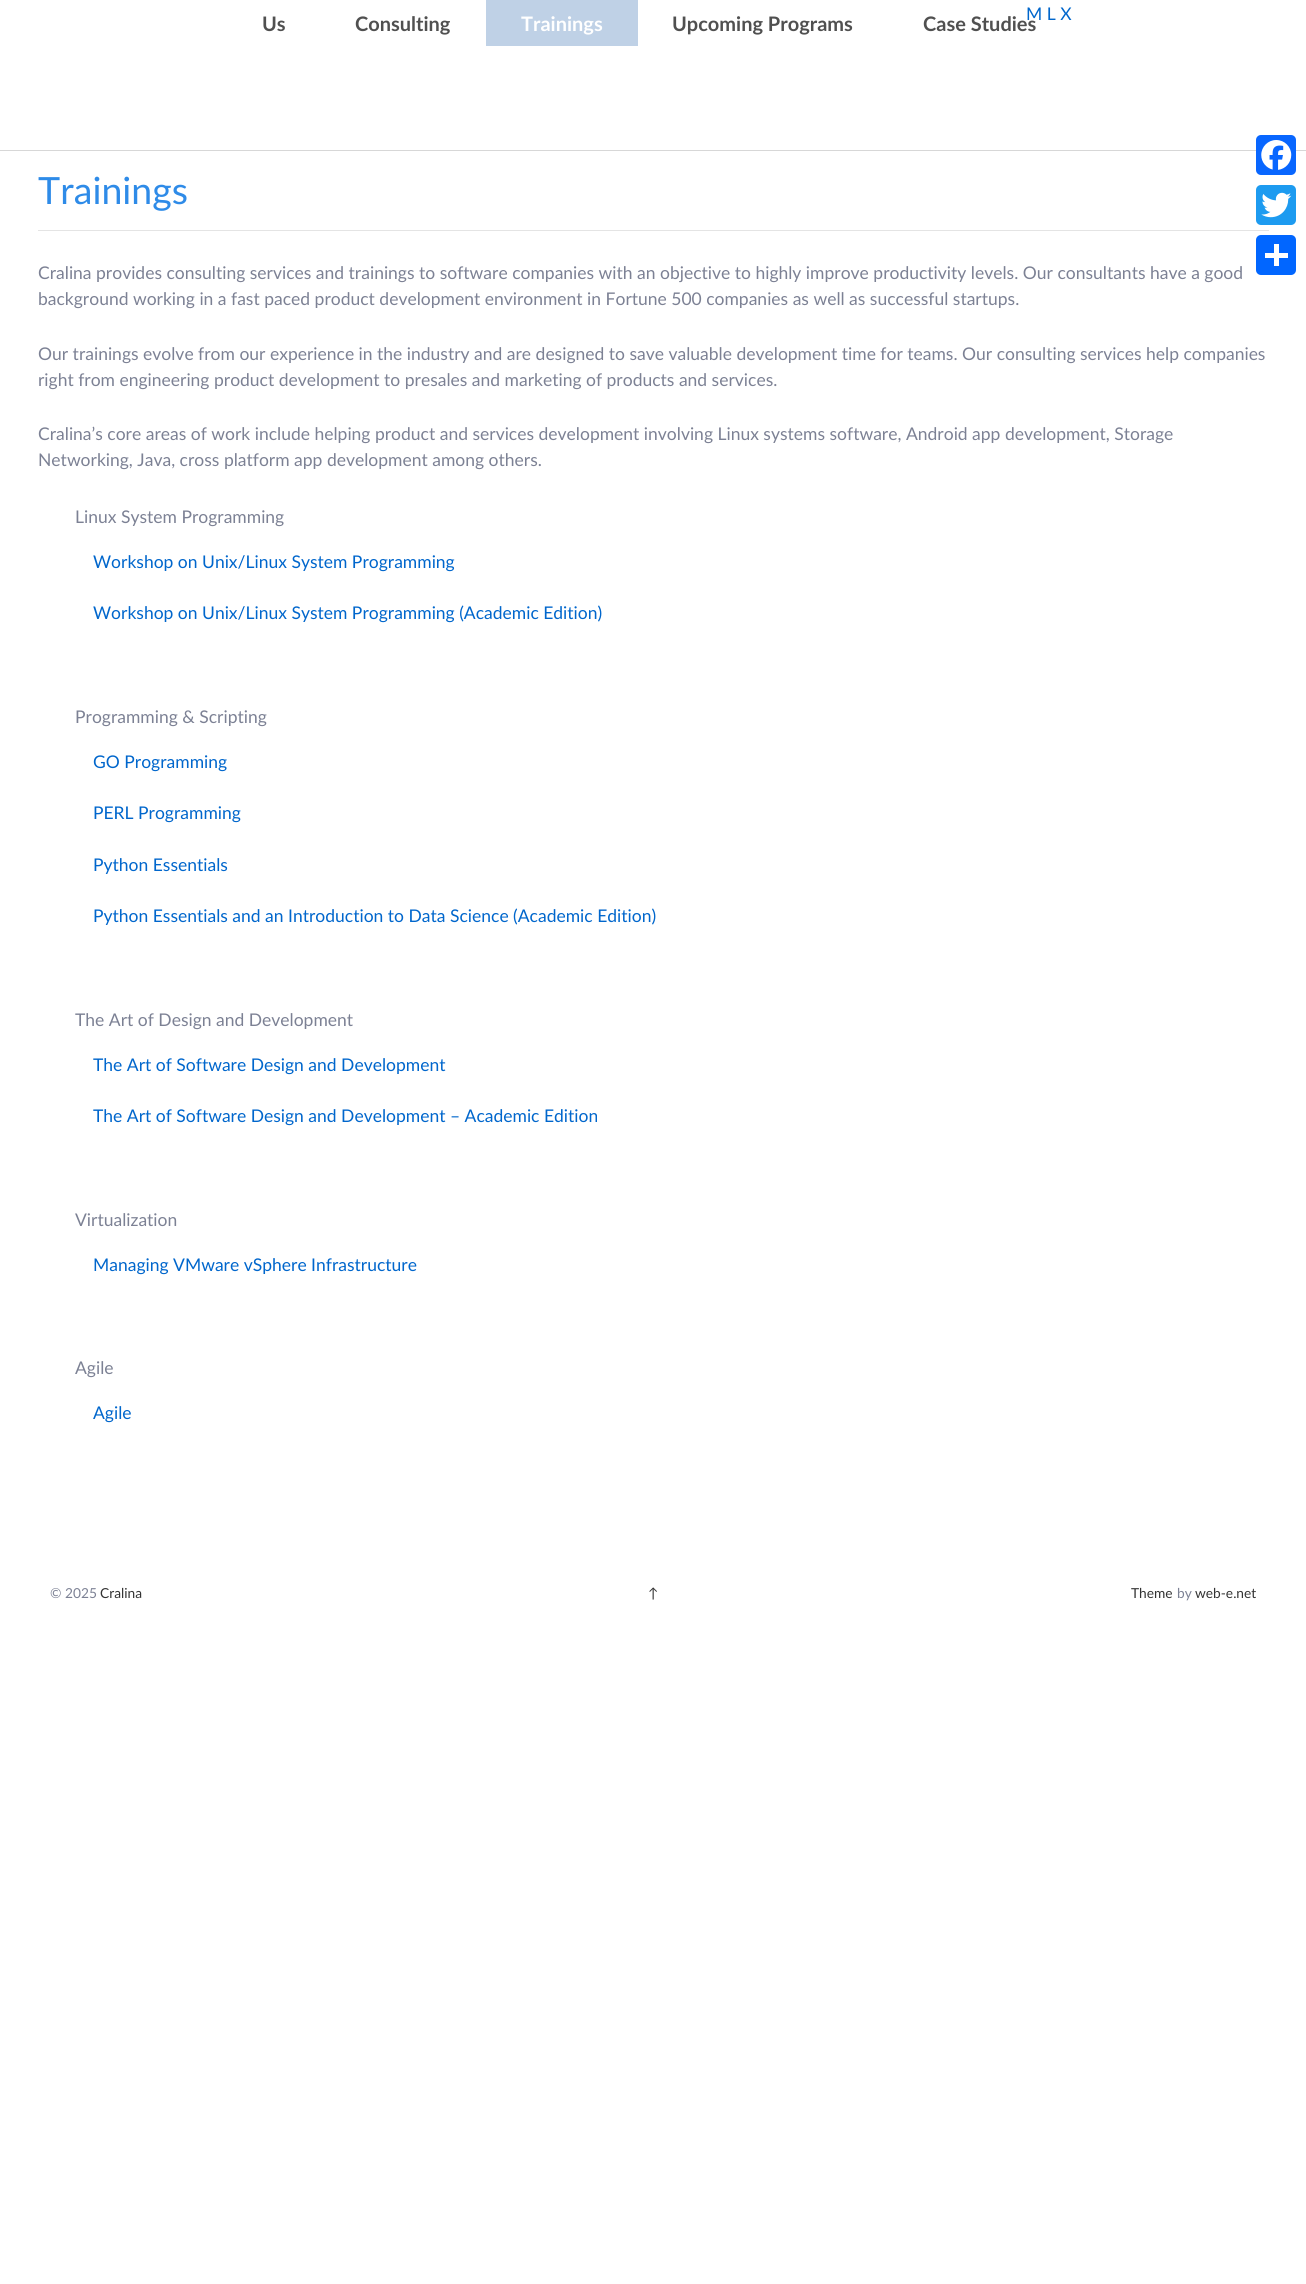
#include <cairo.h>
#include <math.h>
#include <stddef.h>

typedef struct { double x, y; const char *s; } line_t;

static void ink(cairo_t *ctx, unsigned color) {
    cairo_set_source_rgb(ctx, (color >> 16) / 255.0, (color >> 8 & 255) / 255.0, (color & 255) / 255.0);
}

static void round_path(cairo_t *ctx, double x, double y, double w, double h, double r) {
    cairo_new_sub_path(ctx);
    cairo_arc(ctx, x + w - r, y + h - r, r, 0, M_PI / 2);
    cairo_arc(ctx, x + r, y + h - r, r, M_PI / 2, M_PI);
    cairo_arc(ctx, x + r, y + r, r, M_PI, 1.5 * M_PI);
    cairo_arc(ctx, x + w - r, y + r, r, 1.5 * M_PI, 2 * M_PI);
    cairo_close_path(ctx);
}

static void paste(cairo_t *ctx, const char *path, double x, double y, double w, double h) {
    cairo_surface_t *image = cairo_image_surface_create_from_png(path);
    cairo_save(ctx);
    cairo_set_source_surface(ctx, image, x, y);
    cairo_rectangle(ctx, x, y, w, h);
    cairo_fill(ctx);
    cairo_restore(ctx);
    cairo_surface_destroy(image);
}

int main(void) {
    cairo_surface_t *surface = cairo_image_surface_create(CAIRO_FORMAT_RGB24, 1306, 2284);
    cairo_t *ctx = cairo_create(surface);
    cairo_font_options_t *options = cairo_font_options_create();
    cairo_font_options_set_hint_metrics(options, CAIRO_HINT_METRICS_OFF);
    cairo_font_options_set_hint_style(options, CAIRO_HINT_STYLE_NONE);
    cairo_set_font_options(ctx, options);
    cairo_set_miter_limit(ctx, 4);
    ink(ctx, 0xFFFFFF);
    cairo_paint(ctx);
    ink(ctx, 0xD7D7D7);
    cairo_rectangle(ctx, 0, 150, 1306, 1);
    cairo_fill(ctx);
    cairo_select_font_face(ctx, "Lato", CAIRO_FONT_SLANT_NORMAL, CAIRO_FONT_WEIGHT_NORMAL);
    cairo_set_font_size(ctx, 17.5);
    ink(ctx, 0x0066CC);
    cairo_move_to(ctx, 1026, 20);
    cairo_show_text(ctx, "M L X");
    cairo_select_font_face(ctx, "Lato", CAIRO_FONT_SLANT_NORMAL, CAIRO_FONT_WEIGHT_BOLD);
    cairo_set_font_size(ctx, 20);
    ink(ctx, 0x505050);
    cairo_move_to(ctx, 262, 31);
    cairo_show_text(ctx, "Us");
    cairo_move_to(ctx, 355, 31);
    cairo_show_text(ctx, "Consulting");
    ink(ctx, 0xBFD1E6);
    cairo_rectangle(ctx, 486, 0, 152, 46);
    cairo_fill(ctx);
    ink(ctx, 0xFFFFFF);
    cairo_move_to(ctx, 521, 31);
    cairo_show_text(ctx, "Trainings");
    ink(ctx, 0x505050);
    cairo_move_to(ctx, 672, 31);
    cairo_show_text(ctx, "Upcoming Programs");
    cairo_move_to(ctx, 923, 31);
    cairo_show_text(ctx, "Case Studies");
    ink(ctx, 0xE4E4E4);
    cairo_rectangle(ctx, 38, 230, 1231, 1);
    cairo_fill(ctx);
    cairo_select_font_face(ctx, "Lato", CAIRO_FONT_SLANT_NORMAL, CAIRO_FONT_WEIGHT_NORMAL);
    cairo_set_font_size(ctx, 37.5);
    ink(ctx, 0x2E8BE8);
    cairo_move_to(ctx, 38, 204);
    cairo_show_text(ctx, "Trainings");
    cairo_set_font_size(ctx, 17.5);
    ink(ctx, 0x7C8194);
    {
        static const line_t items[] = {
            {38, 279, "Cralina provides consulting services and trainings to software companies with an objective to highly improve productivity levels. Our consultants have a good"},
            {38, 305, "background working in a fast paced product development environment in Fortune 500 companies as well as successful startups."},
            {38, 360, "Our trainings evolve from our experience in the industry and are designed to save valuable development time for teams. Our consulting services help companies"},
            {38, 386, "right from engineering product development to presales and marketing of products and services."},
            {38, 440, "Cralina’s core areas of work include helping product and services development involving Linux systems software, Android app development, Storage"},
            {38, 466, "Networking, Java, cross platform app development among others."},
            {75, 523, "Linux System Programming"},
        };
        for (size_t i = 0; i < sizeof items / sizeof *items; i++) {
            cairo_move_to(ctx, items[i].x, items[i].y);
            cairo_show_text(ctx, items[i].s);
        }
    }
    ink(ctx, 0x0066CC);
    cairo_move_to(ctx, 93, 568);
    cairo_show_text(ctx, "Workshop on Unix/Linux System Programming");
    cairo_move_to(ctx, 93, 619);
    cairo_show_text(ctx, "Workshop on Unix/Linux System Programming (Academic Edition)");
    ink(ctx, 0x7C8194);
    cairo_move_to(ctx, 75, 723);
    cairo_show_text(ctx, "Programming & Scripting");
    ink(ctx, 0x0066CC);
    {
        static const line_t items[] = {
            {93, 768, "GO Programming"},
            {93, 819, "PERL Programming"},
            {93, 871, "Python Essentials"},
            {93, 922, "Python Essentials and an Introduction to Data Science (Academic Edition)"},
        };
        for (size_t i = 0; i < sizeof items / sizeof *items; i++) {
            cairo_move_to(ctx, items[i].x, items[i].y);
            cairo_show_text(ctx, items[i].s);
        }
    }
    ink(ctx, 0x7C8194);
    cairo_move_to(ctx, 75, 1026);
    cairo_show_text(ctx, "The Art of Design and Development");
    ink(ctx, 0x0066CC);
    cairo_move_to(ctx, 93, 1071);
    cairo_show_text(ctx, "The Art of Software Design and Development");
    cairo_move_to(ctx, 93, 1122);
    cairo_show_text(ctx, "The Art of Software Design and Development – Academic Edition");
    ink(ctx, 0x7C8194);
    cairo_move_to(ctx, 75, 1226);
    cairo_show_text(ctx, "Virtualization");
    ink(ctx, 0x0066CC);
    cairo_move_to(ctx, 93, 1271);
    cairo_show_text(ctx, "Managing VMware vSphere Infrastructure");
    ink(ctx, 0x7C8194);
    cairo_move_to(ctx, 75, 1374);
    cairo_show_text(ctx, "Agile");
    ink(ctx, 0x0066CC);
    cairo_move_to(ctx, 93, 1419);
    cairo_show_text(ctx, "Agile");
    ink(ctx, 0x0866FF);
    round_path(ctx, 1256, 135, 40, 40, 5);
    cairo_fill(ctx);
    paste(ctx, "media/1.png", 1261, 140, 31, 30);
    ink(ctx, 0x1D9BF0);
    round_path(ctx, 1256, 185, 40, 40, 5);
    cairo_fill(ctx);
    paste(ctx, "media/2.png", 1261, 192, 31, 26);
    ink(ctx, 0x0166FF);
    round_path(ctx, 1256, 235, 40, 40, 5);
    cairo_fill(ctx);
    ink(ctx, 0xFFFFFF);
    cairo_rectangle(ctx, 1274, 244, 5, 22);
    cairo_fill(ctx);
    cairo_rectangle(ctx, 1265, 253, 23, 5);
    cairo_fill(ctx);
    cairo_set_font_size(ctx, 13.75);
    ink(ctx, 0x7C8194);
    cairo_move_to(ctx, 50, 1598);
    cairo_show_text(ctx, "© 2025");
    ink(ctx, 0x333333);
    {
        static const line_t items[] = {
            {100, 1598, "Cralina"},
            {648, 1598, "↑"},
            {1131, 1598, "Theme"},
        };
        for (size_t i = 0; i < sizeof items / sizeof *items; i++) {
            cairo_move_to(ctx, items[i].x, items[i].y);
            cairo_show_text(ctx, items[i].s);
        }
    }
    ink(ctx, 0x7C8194);
    cairo_move_to(ctx, 1177, 1598);
    cairo_show_text(ctx, "by");
    ink(ctx, 0x333333);
    cairo_move_to(ctx, 1195, 1598);
    cairo_show_text(ctx, "web-e.net");
    cairo_surface_write_to_png(surface, "image.png");
    cairo_font_options_destroy(options);
    cairo_destroy(ctx);
    cairo_surface_destroy(surface);
    return 0;
}
